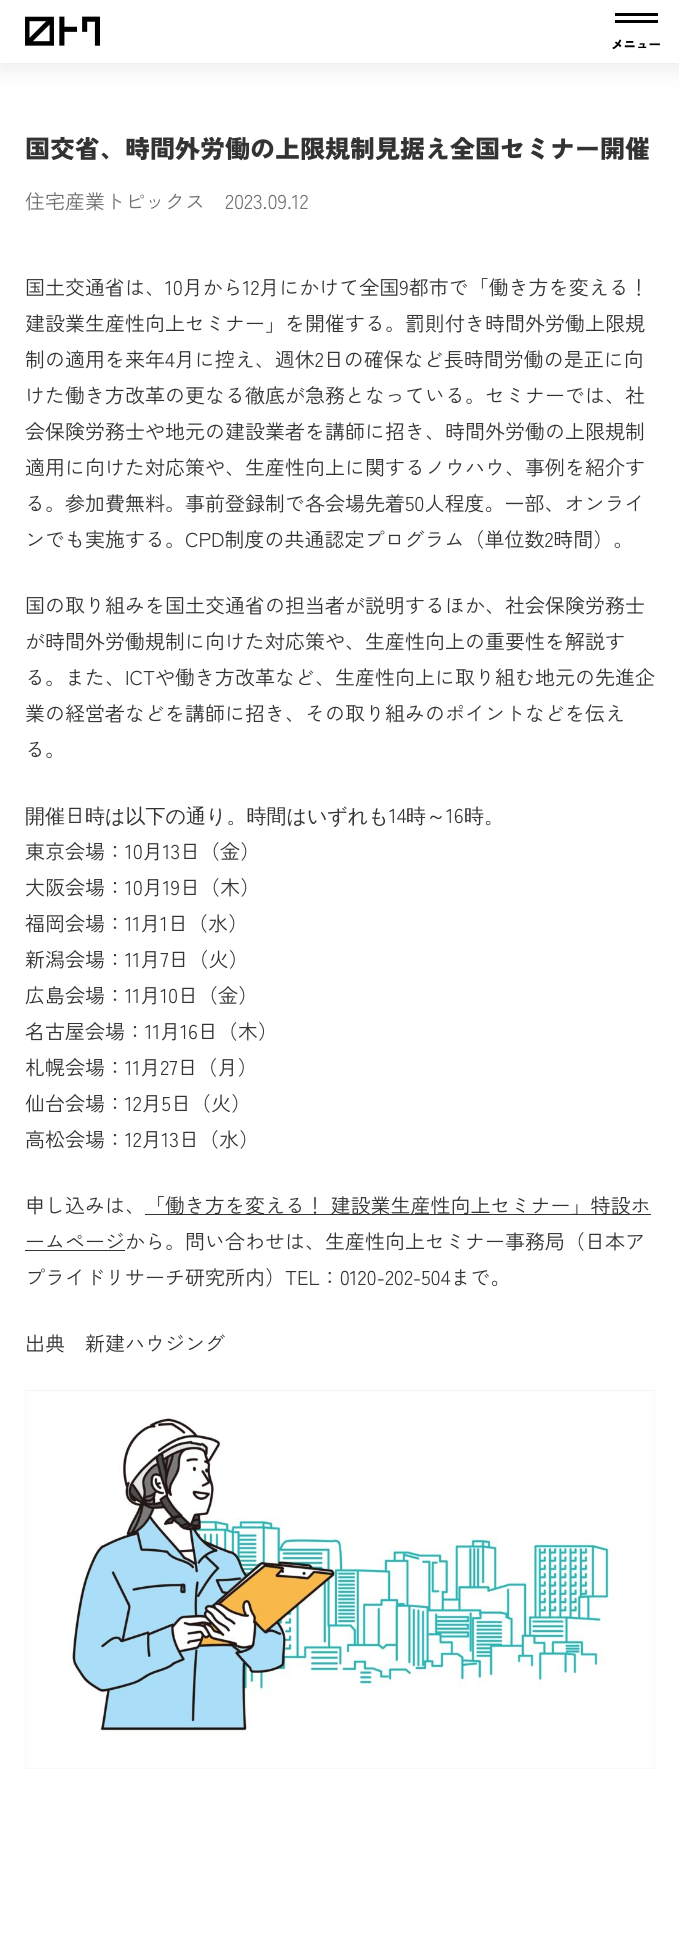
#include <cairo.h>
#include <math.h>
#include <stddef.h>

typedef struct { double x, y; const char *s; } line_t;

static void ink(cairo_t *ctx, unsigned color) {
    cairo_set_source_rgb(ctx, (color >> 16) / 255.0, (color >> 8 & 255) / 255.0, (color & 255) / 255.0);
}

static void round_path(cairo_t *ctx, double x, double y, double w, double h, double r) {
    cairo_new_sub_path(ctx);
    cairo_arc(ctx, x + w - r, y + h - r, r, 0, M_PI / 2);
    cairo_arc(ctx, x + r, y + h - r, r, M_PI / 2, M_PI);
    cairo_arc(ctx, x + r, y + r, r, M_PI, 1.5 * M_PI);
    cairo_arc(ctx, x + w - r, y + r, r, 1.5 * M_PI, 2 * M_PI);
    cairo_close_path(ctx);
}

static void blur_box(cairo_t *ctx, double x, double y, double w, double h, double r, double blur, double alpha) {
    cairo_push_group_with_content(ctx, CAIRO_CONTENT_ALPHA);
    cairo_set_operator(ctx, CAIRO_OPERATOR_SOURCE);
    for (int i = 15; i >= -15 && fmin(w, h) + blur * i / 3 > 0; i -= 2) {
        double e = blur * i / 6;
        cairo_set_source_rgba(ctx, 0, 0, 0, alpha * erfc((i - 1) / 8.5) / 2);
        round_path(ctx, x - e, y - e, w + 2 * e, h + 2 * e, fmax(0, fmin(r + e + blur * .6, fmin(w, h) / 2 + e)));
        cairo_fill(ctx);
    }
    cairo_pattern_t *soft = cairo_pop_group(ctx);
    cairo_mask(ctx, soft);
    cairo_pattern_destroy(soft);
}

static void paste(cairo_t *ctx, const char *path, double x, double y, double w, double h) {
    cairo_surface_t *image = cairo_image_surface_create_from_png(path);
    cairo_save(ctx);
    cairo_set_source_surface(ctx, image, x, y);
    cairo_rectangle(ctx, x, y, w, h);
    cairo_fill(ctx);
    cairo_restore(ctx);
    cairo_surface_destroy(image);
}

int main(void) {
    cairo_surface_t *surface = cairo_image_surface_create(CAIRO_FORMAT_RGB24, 679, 1958);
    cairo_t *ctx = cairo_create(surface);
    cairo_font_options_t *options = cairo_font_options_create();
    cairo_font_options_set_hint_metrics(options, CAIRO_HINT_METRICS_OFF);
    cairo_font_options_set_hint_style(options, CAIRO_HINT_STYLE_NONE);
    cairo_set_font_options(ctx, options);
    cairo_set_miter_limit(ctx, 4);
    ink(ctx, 0xFFFFFF);
    cairo_paint(ctx);
    ink(ctx, 0x000000);
    blur_box(ctx, 0, 4, 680, 62, 0, 12.5, 0.1);
    ink(ctx, 0xFFFFFF);
    cairo_rectangle(ctx, 0, 0, 679, 63);
    cairo_fill(ctx);
    paste(ctx, "media/1.png", 25, 16, 75, 30);
    ink(ctx, 0x000000);
    cairo_rectangle(ctx, 615, 13, 43, 3);
    cairo_fill(ctx);
    cairo_rectangle(ctx, 615, 20, 43, 3);
    cairo_fill(ctx);
    cairo_select_font_face(ctx, "Zen Kaku Gothic New Black", CAIRO_FONT_SLANT_NORMAL, CAIRO_FONT_WEIGHT_NORMAL);
    cairo_set_font_size(ctx, 12.5);
    cairo_move_to(ctx, 611, 49);
    cairo_show_text(ctx, "メニュー");
    cairo_set_font_size(ctx, 25);
    ink(ctx, 0x333333);
    cairo_move_to(ctx, 25, 158);
    cairo_show_text(ctx, "国交省、時間外労働の上限規制見据え全国セミナー開催");
    cairo_select_font_face(ctx, "Zen Kaku Gothic New", CAIRO_FONT_SLANT_NORMAL, CAIRO_FONT_WEIGHT_NORMAL);
    cairo_set_font_size(ctx, 20);
    ink(ctx, 0x707070);
    cairo_move_to(ctx, 25, 209);
    cairo_show_text(ctx, "住宅産業トピックス　2023.09.12");
    ink(ctx, 0x333333);
    {
        static const line_t items[] = {
            {25, 295, "国土交通省は、10月から12月にかけて全国9都市で「働き方を変える！"},
            {25, 331, "建設業生産性向上セミナー」を開催する。罰則付き時間外労働上限規"},
            {25, 367, "制の適用を来年4月に控え、週休2日の確保など長時間労働の是正に向"},
            {25, 403, "けた働き方改革の更なる徹底が急務となっている。セミナーでは、社"},
            {25, 439, "会保険労務士や地元の建設業者を講師に招き、時間外労働の上限規制"},
            {25, 475, "適用に向けた対応策や、生産性向上に関するノウハウ、事例を紹介す"},
            {25, 511, "る。参加費無料。事前登録制で各会場先着50人程度。一部、オンライ"},
            {25, 547, "ンでも実施する。CPD制度の共通認定プログラム（単位数2時間）。"},
            {25, 613, "国の取り組みを国土交通省の担当者が説明するほか、社会保険労務士"},
            {25, 649, "が時間外労働規制に向けた対応策や、生産性向上の重要性を解説す"},
            {25, 685, "る。また、ICTや働き方改革など、生産性向上に取り組む地元の先進企"},
            {25, 721, "業の経営者などを講師に招き、その取り組みのポイントなどを伝え"},
            {25, 757, "る。"},
        };
        for (size_t i = 0; i < sizeof items / sizeof *items; i++) {
            cairo_move_to(ctx, items[i].x, items[i].y);
            cairo_show_text(ctx, items[i].s);
        }
    }
    cairo_select_font_face(ctx, "WenQuanYi Zen Hei Medium", CAIRO_FONT_SLANT_NORMAL, CAIRO_FONT_WEIGHT_NORMAL);
    cairo_move_to(ctx, 25, 823);
    cairo_show_text(ctx, "開催");
    cairo_select_font_face(ctx, "Zen Kaku Gothic New", CAIRO_FONT_SLANT_NORMAL, CAIRO_FONT_WEIGHT_NORMAL);
    cairo_move_to(ctx, 65, 823);
    cairo_show_text(ctx, "日");
    cairo_select_font_face(ctx, "WenQuanYi Zen Hei Medium", CAIRO_FONT_SLANT_NORMAL, CAIRO_FONT_WEIGHT_NORMAL);
    cairo_move_to(ctx, 85, 823);
    cairo_show_text(ctx, "時は以下の通り。時間はいずれも");
    cairo_select_font_face(ctx, "Zen Kaku Gothic New", CAIRO_FONT_SLANT_NORMAL, CAIRO_FONT_WEIGHT_NORMAL);
    cairo_move_to(ctx, 389, 823);
    cairo_show_text(ctx, "14");
    cairo_select_font_face(ctx, "WenQuanYi Zen Hei Medium", CAIRO_FONT_SLANT_NORMAL, CAIRO_FONT_WEIGHT_NORMAL);
    cairo_move_to(ctx, 406, 823);
    cairo_show_text(ctx, "時～");
    cairo_select_font_face(ctx, "Zen Kaku Gothic New", CAIRO_FONT_SLANT_NORMAL, CAIRO_FONT_WEIGHT_NORMAL);
    cairo_move_to(ctx, 446, 823);
    cairo_show_text(ctx, "16");
    cairo_select_font_face(ctx, "WenQuanYi Zen Hei Medium", CAIRO_FONT_SLANT_NORMAL, CAIRO_FONT_WEIGHT_NORMAL);
    cairo_move_to(ctx, 464, 823);
    cairo_show_text(ctx, "時。");
    cairo_select_font_face(ctx, "Zen Kaku Gothic New", CAIRO_FONT_SLANT_NORMAL, CAIRO_FONT_WEIGHT_NORMAL);
    {
        static const line_t items[] = {
            {25, 859, "東京会場：10月13日（金）"},
            {25, 895, "大阪会場：10月19日（木）"},
            {25, 931, "福岡会場：11月1日（水）"},
            {25, 967, "新潟会場：11月7日（火）"},
            {25, 1003, "広島会場：11月10日（金）"},
            {25, 1039, "名古屋会場：11月16日（木）"},
            {25, 1075, "札幌会場：11月27日（月）"},
            {25, 1111, "仙台会場：12月5日（火）"},
            {25, 1147, "高松会場：12月13日（水）"},
            {25, 1213, "申し込みは、"},
        };
        for (size_t i = 0; i < sizeof items / sizeof *items; i++) {
            cairo_move_to(ctx, items[i].x, items[i].y);
            cairo_show_text(ctx, items[i].s);
        }
    }
    cairo_rectangle(ctx, 145, 1214, 506, 1);
    cairo_fill(ctx);
    cairo_move_to(ctx, 145, 1213);
    cairo_show_text(ctx, "「働き方を変える！ 建設業生産性向上セミナー」特設ホ");
    cairo_rectangle(ctx, 25, 1250, 100, 1);
    cairo_fill(ctx);
    {
        static const line_t items[] = {
            {25, 1249, "ームページから。問い合わせは、生産性向上セミナー事務局（日本ア"},
            {25, 1285, "プライドリサーチ研究所内）TEL：0120-202-504まで。"},
            {25, 1351, "出典"},
            {85, 1351, "新建ハウジング"},
        };
        for (size_t i = 0; i < sizeof items / sizeof *items; i++) {
            cairo_move_to(ctx, items[i].x, items[i].y);
            cairo_show_text(ctx, items[i].s);
        }
    }
    paste(ctx, "media/2.png", 25, 1390, 630, 379);
    cairo_surface_write_to_png(surface, "image.png");
    cairo_font_options_destroy(options);
    cairo_destroy(ctx);
    cairo_surface_destroy(surface);
    return 0;
}
